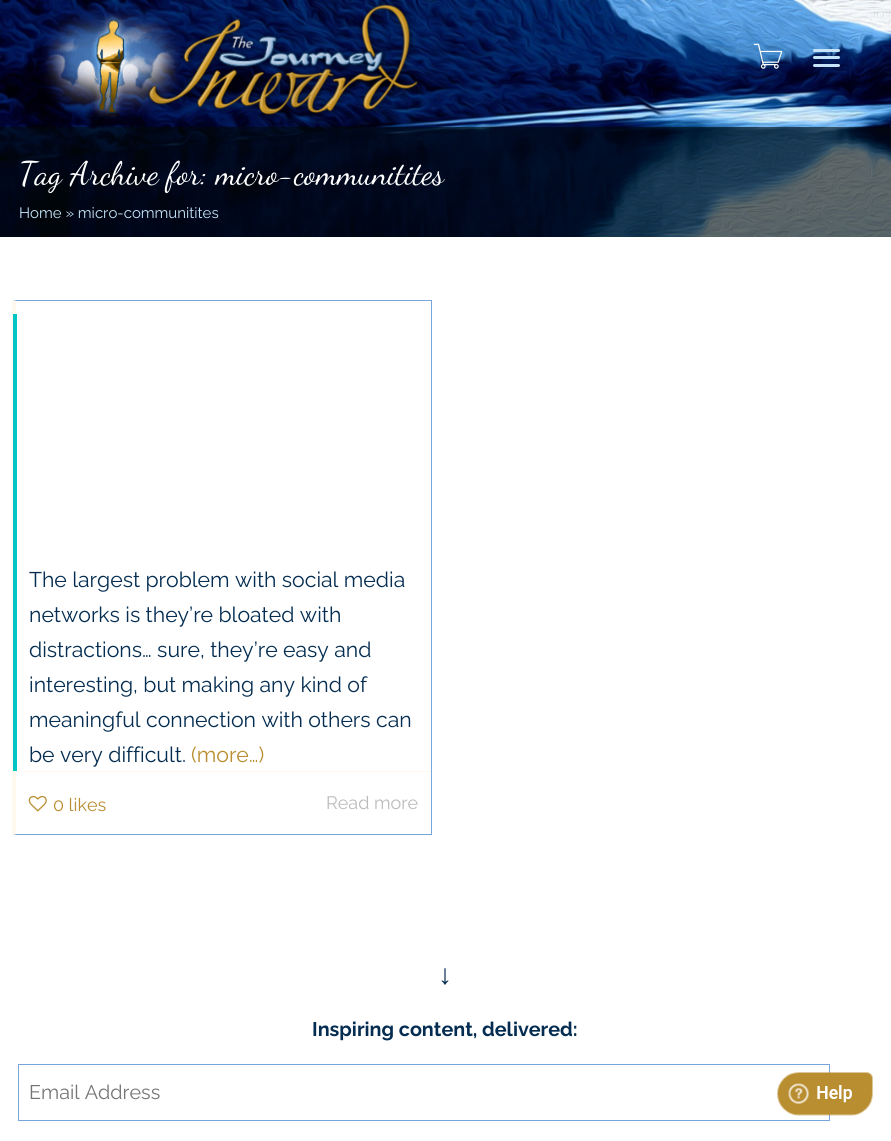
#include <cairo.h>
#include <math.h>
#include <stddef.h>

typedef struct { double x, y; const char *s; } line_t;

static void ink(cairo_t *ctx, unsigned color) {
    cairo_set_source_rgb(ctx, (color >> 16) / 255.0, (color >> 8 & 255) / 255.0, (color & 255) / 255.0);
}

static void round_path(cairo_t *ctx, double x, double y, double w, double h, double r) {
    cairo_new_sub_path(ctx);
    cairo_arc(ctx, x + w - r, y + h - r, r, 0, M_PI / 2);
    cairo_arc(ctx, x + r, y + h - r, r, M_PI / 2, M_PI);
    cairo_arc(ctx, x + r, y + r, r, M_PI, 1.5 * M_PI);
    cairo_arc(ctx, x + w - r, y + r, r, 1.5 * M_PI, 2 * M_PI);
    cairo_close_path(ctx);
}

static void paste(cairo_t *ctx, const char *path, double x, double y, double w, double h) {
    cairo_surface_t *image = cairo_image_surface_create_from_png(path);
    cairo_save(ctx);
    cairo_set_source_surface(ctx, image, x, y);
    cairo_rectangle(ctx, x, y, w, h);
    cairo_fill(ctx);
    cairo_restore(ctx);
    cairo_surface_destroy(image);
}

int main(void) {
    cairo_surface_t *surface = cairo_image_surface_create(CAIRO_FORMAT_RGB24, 891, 1141);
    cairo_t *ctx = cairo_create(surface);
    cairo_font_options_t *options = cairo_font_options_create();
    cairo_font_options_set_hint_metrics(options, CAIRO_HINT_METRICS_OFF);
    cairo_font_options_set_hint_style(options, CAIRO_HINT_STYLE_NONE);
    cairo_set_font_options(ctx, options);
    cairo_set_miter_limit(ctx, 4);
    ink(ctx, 0xFFFFFF);
    cairo_paint(ctx);
    paste(ctx, "media/1.png", 0, 0, 891, 237);
    paste(ctx, "media/2.png", 0, 0, 891, 125);
    paste(ctx, "media/3.png", 42, 2, 377, 117);
    paste(ctx, "media/4.png", 753, 43, 30, 26);
    ink(ctx, 0xC5E4F9);
    round_path(ctx, 813, 49, 27, 3, 1.5);
    cairo_fill(ctx);
    round_path(ctx, 813, 56, 27, 3, 1.5);
    cairo_fill(ctx);
    round_path(ctx, 813, 64, 27, 3, 1.5);
    cairo_fill(ctx);
    cairo_set_source_rgba(ctx, 0, 0.039, 0.039, 0.6);
    cairo_rectangle(ctx, 0, 127, 891, 110);
    cairo_fill(ctx);
    cairo_select_font_face(ctx, "Dancing Script", CAIRO_FONT_SLANT_NORMAL, CAIRO_FONT_WEIGHT_NORMAL);
    cairo_set_font_size(ctx, 32.5);
    ink(ctx, 0xFFFFFF);
    cairo_move_to(ctx, 19, 184);
    cairo_show_text(ctx, "Tag Archive for: micro-communitites");
    cairo_select_font_face(ctx, "Raleway", CAIRO_FONT_SLANT_NORMAL, CAIRO_FONT_WEIGHT_NORMAL);
    cairo_set_font_size(ctx, 15);
    ink(ctx, 0xC5E4F9);
    cairo_move_to(ctx, 19, 218);
    cairo_show_text(ctx, "Home » micro-communitites");
    ink(ctx, 0x78A6DC);
    cairo_new_path(ctx);
    cairo_move_to(ctx, 12, 300);
    cairo_line_to(ctx, 432, 300);
    cairo_line_to(ctx, 431, 301);
    cairo_line_to(ctx, 16, 301);
    cairo_close_path(ctx);
    cairo_fill(ctx);
    cairo_rectangle(ctx, 431, 300, 1, 535);
    cairo_fill(ctx);
    cairo_new_path(ctx);
    cairo_move_to(ctx, 432, 835);
    cairo_line_to(ctx, 12, 835);
    cairo_line_to(ctx, 16, 834);
    cairo_line_to(ctx, 431, 834);
    cairo_close_path(ctx);
    cairo_fill(ctx);
    ink(ctx, 0xFFF8ED);
    cairo_new_path(ctx);
    cairo_move_to(ctx, 12, 835);
    cairo_line_to(ctx, 12, 300);
    cairo_line_to(ctx, 16, 301);
    cairo_line_to(ctx, 16, 834);
    cairo_close_path(ctx);
    cairo_fill(ctx);
    ink(ctx, 0x00C5C4);
    cairo_rectangle(ctx, 13, 314, 4, 457);
    cairo_fill(ctx);
    cairo_set_font_size(ctx, 21.25);
    ink(ctx, 0x042D51);
    {
        static const line_t items[] = {
            {29, 587, "The largest problem with social media"},
            {29, 622, "networks is they’re bloated with"},
            {29, 657, "distractions… sure, they’re easy and"},
            {29, 692, "interesting, but making any kind of"},
            {29, 727, "meaningful connection with others can"},
            {29, 762, "be very difficult."},
        };
        for (size_t i = 0; i < sizeof items / sizeof *items; i++) {
            cairo_move_to(ctx, items[i].x, items[i].y);
            cairo_show_text(ctx, items[i].s);
        }
    }
    ink(ctx, 0xB98E31);
    cairo_move_to(ctx, 191, 762);
    cairo_show_text(ctx, "(more…)");
    ink(ctx, 0xFFF8ED);
    cairo_rectangle(ctx, 16, 771, 415, 1);
    cairo_fill(ctx);
    paste(ctx, "media/5.png", 28, 795, 19, 17);
    cairo_set_font_size(ctx, 18);
    ink(ctx, 0xB98E31);
    cairo_move_to(ctx, 53, 811);
    cairo_show_text(ctx, "0 likes");
    ink(ctx, 0xBBBBBB);
    cairo_move_to(ctx, 326, 809);
    cairo_show_text(ctx, "Read more");
    cairo_select_font_face(ctx, "Liberation Sans", CAIRO_FONT_SLANT_NORMAL, CAIRO_FONT_WEIGHT_BOLD);
    cairo_set_font_size(ctx, 28);
    ink(ctx, 0x042D51);
    cairo_move_to(ctx, 438, 984);
    cairo_show_text(ctx, "↓");
    cairo_select_font_face(ctx, "Raleway", CAIRO_FONT_SLANT_NORMAL, CAIRO_FONT_WEIGHT_BOLD);
    cairo_set_font_size(ctx, 19.75);
    cairo_move_to(ctx, 312, 1036);
    cairo_show_text(ctx, "Inspiring content, delivered:");
    cairo_rectangle(ctx, 18.5, 1064.5, 811, 56);
    ink(ctx, 0x78A6DC);
    cairo_set_line_width(ctx, 1);
    cairo_stroke(ctx);
    cairo_select_font_face(ctx, "Raleway", CAIRO_FONT_SLANT_NORMAL, CAIRO_FONT_WEIGHT_NORMAL);
    ink(ctx, 0x757575);
    cairo_move_to(ctx, 29, 1099);
    cairo_show_text(ctx, "Email Address");
    paste(ctx, "media/6.png", 777, 1072, 96, 44);
    cairo_surface_write_to_png(surface, "image.png");
    cairo_font_options_destroy(options);
    cairo_destroy(ctx);
    cairo_surface_destroy(surface);
    return 0;
}
